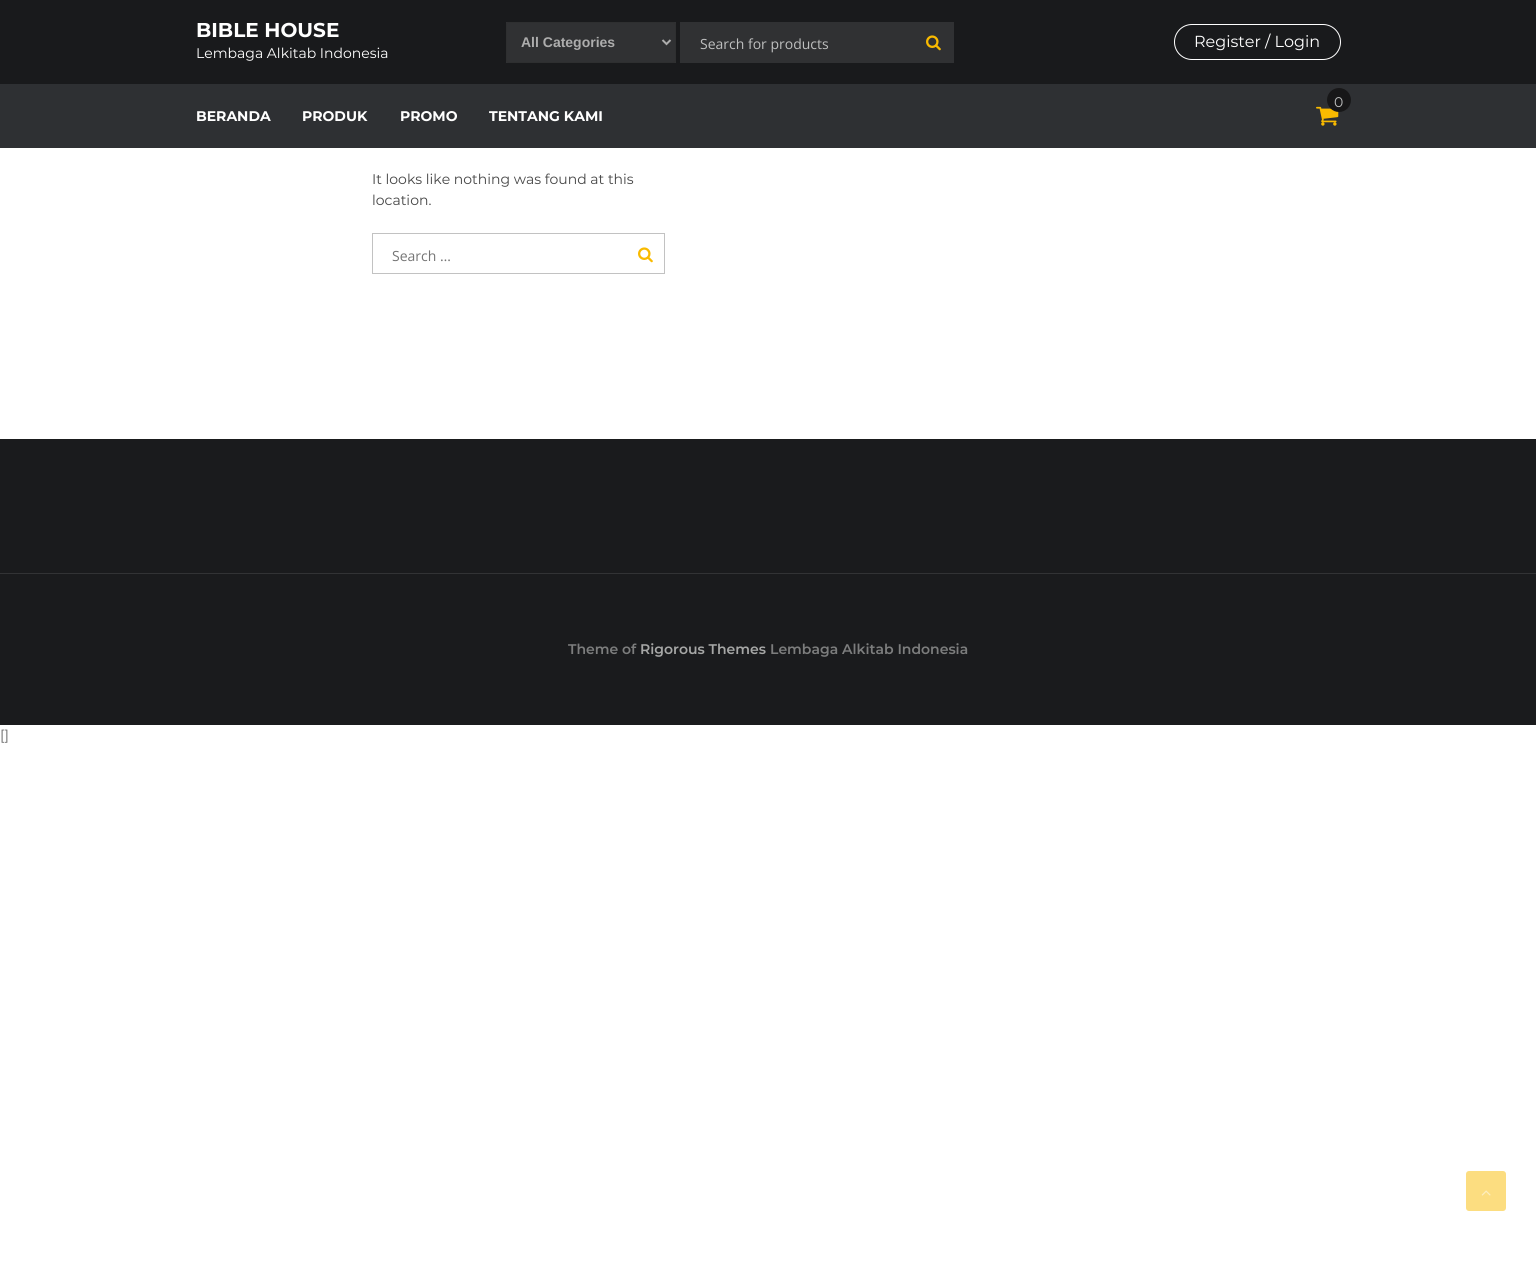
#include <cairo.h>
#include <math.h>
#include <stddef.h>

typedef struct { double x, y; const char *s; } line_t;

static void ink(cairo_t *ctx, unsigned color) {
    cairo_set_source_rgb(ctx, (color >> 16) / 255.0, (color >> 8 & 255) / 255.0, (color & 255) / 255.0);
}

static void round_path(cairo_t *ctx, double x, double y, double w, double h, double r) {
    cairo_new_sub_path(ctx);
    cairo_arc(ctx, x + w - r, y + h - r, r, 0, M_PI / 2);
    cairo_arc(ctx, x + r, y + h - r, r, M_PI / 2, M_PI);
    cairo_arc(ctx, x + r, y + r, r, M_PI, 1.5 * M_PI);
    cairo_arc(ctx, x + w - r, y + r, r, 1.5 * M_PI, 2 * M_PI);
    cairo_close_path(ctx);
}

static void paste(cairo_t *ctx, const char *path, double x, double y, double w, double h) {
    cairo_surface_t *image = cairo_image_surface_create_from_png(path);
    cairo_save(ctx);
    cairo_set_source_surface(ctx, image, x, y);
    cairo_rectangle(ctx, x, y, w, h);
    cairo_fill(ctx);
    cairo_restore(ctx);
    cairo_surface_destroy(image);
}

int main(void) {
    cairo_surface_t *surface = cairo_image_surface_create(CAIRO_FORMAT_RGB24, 1536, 1281);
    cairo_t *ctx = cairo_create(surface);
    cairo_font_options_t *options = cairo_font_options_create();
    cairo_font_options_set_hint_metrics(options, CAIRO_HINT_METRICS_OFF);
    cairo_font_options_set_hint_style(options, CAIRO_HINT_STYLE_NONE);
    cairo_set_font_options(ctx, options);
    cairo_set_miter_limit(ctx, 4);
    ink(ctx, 0xFFFFFF);
    cairo_paint(ctx);
    ink(ctx, 0x191A1C);
    cairo_rectangle(ctx, 0, 0, 1536, 84);
    cairo_fill(ctx);
    cairo_select_font_face(ctx, "Montserrat", CAIRO_FONT_SLANT_NORMAL, CAIRO_FONT_WEIGHT_BOLD);
    cairo_set_font_size(ctx, 20);
    ink(ctx, 0xFFFFFF);
    cairo_move_to(ctx, 196, 37);
    cairo_show_text(ctx, "BIBLE HOUSE");
    cairo_select_font_face(ctx, "Montserrat", CAIRO_FONT_SLANT_NORMAL, CAIRO_FONT_WEIGHT_NORMAL);
    cairo_set_font_size(ctx, 14);
    cairo_move_to(ctx, 196, 58);
    cairo_show_text(ctx, "Lembaga Alkitab Indonesia");
    ink(ctx, 0x303133);
    cairo_rectangle(ctx, 506, 22, 170, 41);
    cairo_fill(ctx);
    round_path(ctx, 506.5, 22.5, 169, 40, 2.5);
    ink(ctx, 0x2E2F30);
    cairo_set_line_width(ctx, 1);
    cairo_stroke(ctx);
    cairo_new_path(ctx);
    cairo_move_to(ctx, 662.5, 40);
    cairo_line_to(ctx, 666.5, 44);
    cairo_line_to(ctx, 670.5, 40);
    ink(ctx, 0xADADAD);
    cairo_set_line_width(ctx, 2);
    cairo_stroke(ctx);
    cairo_select_font_face(ctx, "Liberation Sans", CAIRO_FONT_SLANT_NORMAL, CAIRO_FONT_WEIGHT_BOLD);
    cairo_move_to(ctx, 521, 47);
    cairo_show_text(ctx, "All Categories");
    ink(ctx, 0x303133);
    cairo_rectangle(ctx, 680, 22, 274, 41);
    cairo_fill(ctx);
    cairo_select_font_face(ctx, "Open Sans", CAIRO_FONT_SLANT_NORMAL, CAIRO_FONT_WEIGHT_NORMAL);
    ink(ctx, 0xBEBFBF);
    cairo_move_to(ctx, 700, 49);
    cairo_show_text(ctx, "Search for products");
    paste(ctx, "media/1.png", 926, 35, 15, 16);
    round_path(ctx, 1174.5, 24.5, 166, 35, 17.5);
    ink(ctx, 0xFFFFFF);
    cairo_set_line_width(ctx, 1);
    cairo_stroke(ctx);
    cairo_select_font_face(ctx, "Montserrat", CAIRO_FONT_SLANT_NORMAL, CAIRO_FONT_WEIGHT_NORMAL);
    cairo_set_font_size(ctx, 16);
    cairo_move_to(ctx, 1194, 47);
    cairo_show_text(ctx, "Register / Login");
    ink(ctx, 0x2E3033);
    cairo_rectangle(ctx, 0, 84, 1536, 64);
    cairo_fill(ctx);
    paste(ctx, "media/2.png", 1316, 106, 23, 20);
    ink(ctx, 0x171718);
    cairo_arc(ctx, 1339, 100, 12, 0, 2 * M_PI);
    cairo_fill(ctx);
    cairo_set_font_size(ctx, 14);
    ink(ctx, 0xBEBFBF);
    cairo_move_to(ctx, 1334, 107);
    cairo_show_text(ctx, "0");
    cairo_select_font_face(ctx, "Montserrat", CAIRO_FONT_SLANT_NORMAL, CAIRO_FONT_WEIGHT_BOLD);
    ink(ctx, 0xFFFFFF);
    {
        static const line_t items[] = {
            {196, 121, "BERANDA"},
            {302, 121, "PRODUK"},
            {400, 121, "PROMO"},
            {489, 121, "TENTANG KAMI"},
        };
        for (size_t i = 0; i < sizeof items / sizeof *items; i++) {
            cairo_move_to(ctx, items[i].x, items[i].y);
            cairo_show_text(ctx, items[i].s);
        }
    }
    cairo_select_font_face(ctx, "Montserrat", CAIRO_FONT_SLANT_NORMAL, CAIRO_FONT_WEIGHT_NORMAL);
    ink(ctx, 0x464646);
    cairo_move_to(ctx, 372, 184);
    cairo_show_text(ctx, "It looks like nothing was found at this");
    cairo_move_to(ctx, 372, 205);
    cairo_show_text(ctx, "location.");
    cairo_rectangle(ctx, 372.5, 233.5, 292, 40);
    ink(ctx, 0xC2C2C2);
    cairo_stroke(ctx);
    cairo_select_font_face(ctx, "Open Sans", CAIRO_FONT_SLANT_NORMAL, CAIRO_FONT_WEIGHT_NORMAL);
    ink(ctx, 0x757575);
    cairo_move_to(ctx, 392, 261);
    cairo_show_text(ctx, "Search …");
    paste(ctx, "media/3.png", 638, 247, 15, 16);
    ink(ctx, 0x1A1B1D);
    cairo_rectangle(ctx, 0, 439, 1536, 286);
    cairo_fill(ctx);
    ink(ctx, 0x323335);
    cairo_rectangle(ctx, 0, 573, 1536, 1);
    cairo_fill(ctx);
    cairo_select_font_face(ctx, "Montserrat SemiBold", CAIRO_FONT_SLANT_NORMAL, CAIRO_FONT_WEIGHT_NORMAL);
    ink(ctx, 0x7C7D7D);
    cairo_move_to(ctx, 568, 654);
    cairo_show_text(ctx, "Theme of");
    ink(ctx, 0xA6A7A6);
    cairo_move_to(ctx, 640, 654);
    cairo_show_text(ctx, "Rigorous Themes");
    ink(ctx, 0x7C7D7D);
    cairo_move_to(ctx, 770, 654);
    cairo_show_text(ctx, "Lembaga Alkitab Indonesia");
    ink(ctx, 0xFCDD80);
    round_path(ctx, 1466, 1171, 40, 40, 3);
    cairo_fill(ctx);
    paste(ctx, "media/4.png", 1481, 1190, 10, 6);
    cairo_select_font_face(ctx, "Montserrat", CAIRO_FONT_SLANT_NORMAL, CAIRO_FONT_WEIGHT_NORMAL);
    ink(ctx, 0x676767);
    cairo_move_to(ctx, 0, 740);
    cairo_show_text(ctx, "[]");
    cairo_surface_write_to_png(surface, "image.png");
    cairo_font_options_destroy(options);
    cairo_destroy(ctx);
    cairo_surface_destroy(surface);
    return 0;
}
